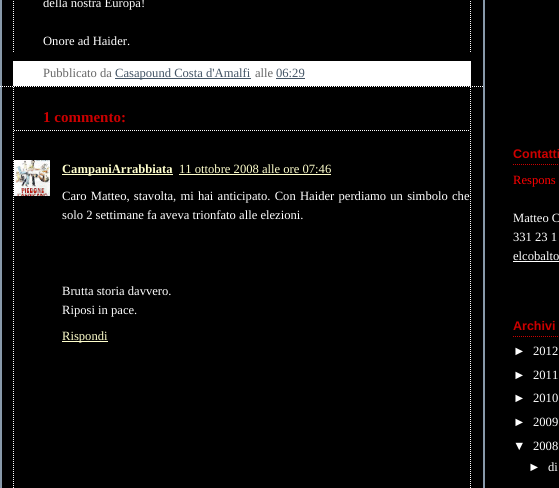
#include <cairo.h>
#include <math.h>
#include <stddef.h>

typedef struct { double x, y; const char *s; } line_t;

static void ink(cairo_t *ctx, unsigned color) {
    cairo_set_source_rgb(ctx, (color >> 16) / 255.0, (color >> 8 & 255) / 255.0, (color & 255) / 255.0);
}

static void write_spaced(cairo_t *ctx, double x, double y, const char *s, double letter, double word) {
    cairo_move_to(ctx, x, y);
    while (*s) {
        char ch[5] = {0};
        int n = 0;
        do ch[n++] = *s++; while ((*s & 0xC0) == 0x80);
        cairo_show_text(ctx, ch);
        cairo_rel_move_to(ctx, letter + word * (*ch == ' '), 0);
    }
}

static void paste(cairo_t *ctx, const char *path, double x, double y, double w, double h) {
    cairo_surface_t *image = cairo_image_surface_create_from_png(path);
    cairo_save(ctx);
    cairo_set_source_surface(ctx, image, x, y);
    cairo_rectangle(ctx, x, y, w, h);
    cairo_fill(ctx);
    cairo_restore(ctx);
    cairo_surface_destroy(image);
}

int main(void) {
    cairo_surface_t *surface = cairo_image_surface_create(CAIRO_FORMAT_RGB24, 559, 488);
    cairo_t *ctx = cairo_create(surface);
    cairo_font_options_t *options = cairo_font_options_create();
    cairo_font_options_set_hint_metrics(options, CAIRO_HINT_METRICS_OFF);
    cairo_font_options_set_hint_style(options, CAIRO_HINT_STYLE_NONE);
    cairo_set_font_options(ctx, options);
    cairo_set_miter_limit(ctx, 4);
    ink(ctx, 0x000000);
    cairo_paint(ctx);
    paste(ctx, "media/1.png", 0, 0, 485, 488);
    cairo_new_path(ctx);
    cairo_move_to(ctx, 0, 86.5);
    cairo_line_to(ctx, 484, 86.5);
    ink(ctx, 0xFFFFFF);
    cairo_set_line_width(ctx, 1);
    cairo_set_dash(ctx, (double[]){1, 1}, 2, 0);
    cairo_stroke(ctx);
    cairo_new_path(ctx);
    cairo_move_to(ctx, 470.5, -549);
    cairo_line_to(ctx, 470.5, 52);
    cairo_stroke(ctx);
    cairo_new_path(ctx);
    cairo_move_to(ctx, 13.5, -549);
    cairo_line_to(ctx, 13.5, 52);
    cairo_stroke(ctx);
    cairo_select_font_face(ctx, "Liberation Serif", CAIRO_FONT_SLANT_NORMAL, CAIRO_FONT_WEIGHT_NORMAL);
    cairo_set_font_size(ctx, 12.6);
    cairo_move_to(ctx, 43, 7);
    cairo_show_text(ctx, "della nostra Europa!");
    cairo_move_to(ctx, 43, 45);
    cairo_show_text(ctx, "Onore ad Haider.");
    cairo_rectangle(ctx, 13, 61, 458, 25);
    cairo_fill(ctx);
    ink(ctx, 0x666666);
    cairo_move_to(ctx, 43, 77);
    cairo_show_text(ctx, "Pubblicato da");
    ink(ctx, 0x445566);
    cairo_rectangle(ctx, 115, 78, 136, 1);
    cairo_fill(ctx);
    cairo_move_to(ctx, 115, 77);
    cairo_show_text(ctx, "Casapound Costa d'Amalfi");
    ink(ctx, 0x666666);
    cairo_move_to(ctx, 255, 77);
    cairo_show_text(ctx, "alle");
    ink(ctx, 0x445566);
    cairo_move_to(ctx, 276, 77);
    cairo_show_text(ctx, "06:29");
    cairo_rectangle(ctx, 276, 78, 29, 1);
    cairo_fill(ctx);
    cairo_new_path(ctx);
    cairo_move_to(ctx, 470.5, 87);
    cairo_line_to(ctx, 470.5, 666);
    ink(ctx, 0xFFFFFF);
    cairo_stroke(ctx);
    cairo_new_path(ctx);
    cairo_move_to(ctx, 13.5, 87);
    cairo_line_to(ctx, 13.5, 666);
    cairo_stroke(ctx);
    cairo_new_path(ctx);
    cairo_move_to(ctx, 14, 130.5);
    cairo_line_to(ctx, 470, 130.5);
    cairo_stroke(ctx);
    cairo_select_font_face(ctx, "Liberation Serif", CAIRO_FONT_SLANT_NORMAL, CAIRO_FONT_WEIGHT_BOLD);
    cairo_set_font_size(ctx, 15);
    ink(ctx, 0xCC0000);
    cairo_move_to(ctx, 43, 122);
    cairo_show_text(ctx, "1 commento:");
    paste(ctx, "media/2.png", 14, 160, 36, 36);
    ink(ctx, 0xFFFFCC);
    cairo_rectangle(ctx, 62, 174, 111, 1);
    cairo_fill(ctx);
    cairo_set_font_size(ctx, 12.6);
    cairo_move_to(ctx, 62, 173);
    cairo_show_text(ctx, "CampaniArrabbiata");
    cairo_select_font_face(ctx, "Liberation Serif", CAIRO_FONT_SLANT_NORMAL, CAIRO_FONT_WEIGHT_NORMAL);
    cairo_move_to(ctx, 179, 173);
    cairo_show_text(ctx, "11 ottobre 2008 alle ore 07:46");
    cairo_rectangle(ctx, 179, 174, 152, 1);
    cairo_fill(ctx);
    ink(ctx, 0xFFFFFF);
    write_spaced(ctx, 62, 200, "Caro Matteo, stavolta, mi hai anticipato. Con Haider perdiamo un simbolo che", 0, 1.1);
    {
        static const line_t items[] = {
            {62, 219, "solo 2 settimane fa aveva trionfato alle elezioni."},
            {62, 295, "Brutta storia davvero."},
            {62, 314, "Riposi in pace."},
        };
        for (size_t i = 0; i < sizeof items / sizeof *items; i++) {
            cairo_move_to(ctx, items[i].x, items[i].y);
            cairo_show_text(ctx, items[i].s);
        }
    }
    ink(ctx, 0xFFFFCC);
    cairo_rectangle(ctx, 62, 341, 46, 1);
    cairo_fill(ctx);
    cairo_move_to(ctx, 62, 340);
    cairo_show_text(ctx, "Rispondi");
    cairo_new_path(ctx);
    cairo_move_to(ctx, 513, 164.5);
    cairo_line_to(ctx, 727, 164.5);
    ink(ctx, 0xCC0000);
    cairo_stroke(ctx);
    cairo_select_font_face(ctx, "Liberation Sans", CAIRO_FONT_SLANT_NORMAL, CAIRO_FONT_WEIGHT_BOLD);
    cairo_set_font_size(ctx, 12.5);
    cairo_move_to(ctx, 513, 158);
    cairo_show_text(ctx, "Contatti");
    cairo_select_font_face(ctx, "Liberation Serif", CAIRO_FONT_SLANT_NORMAL, CAIRO_FONT_WEIGHT_NORMAL);
    cairo_set_font_size(ctx, 12.6);
    ink(ctx, 0xFF0000);
    cairo_move_to(ctx, 513, 184);
    cairo_show_text(ctx, "Respons");
    ink(ctx, 0xFFFFFF);
    {
        static const line_t items[] = {
            {513, 222, "Matteo C"},
            {513, 241, "331 23 1"},
            {513, 260, "elcobalto"},
        };
        for (size_t i = 0; i < sizeof items / sizeof *items; i++) {
            cairo_move_to(ctx, items[i].x, items[i].y);
            cairo_show_text(ctx, items[i].s);
        }
    }
    cairo_rectangle(ctx, 513, 261, 46, 1);
    cairo_fill(ctx);
    cairo_new_path(ctx);
    cairo_move_to(ctx, 513, 336.5);
    cairo_line_to(ctx, 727, 336.5);
    ink(ctx, 0xCC0000);
    cairo_stroke(ctx);
    cairo_select_font_face(ctx, "Liberation Sans", CAIRO_FONT_SLANT_NORMAL, CAIRO_FONT_WEIGHT_BOLD);
    cairo_set_font_size(ctx, 12.5);
    cairo_move_to(ctx, 513, 330);
    cairo_show_text(ctx, "Archivi");
    cairo_select_font_face(ctx, "Liberation Sans", CAIRO_FONT_SLANT_NORMAL, CAIRO_FONT_WEIGHT_NORMAL);
    cairo_set_font_size(ctx, 12.6);
    ink(ctx, 0xFFFFFF);
    cairo_move_to(ctx, 513, 355);
    cairo_show_text(ctx, "►");
    cairo_select_font_face(ctx, "Liberation Serif", CAIRO_FONT_SLANT_NORMAL, CAIRO_FONT_WEIGHT_NORMAL);
    cairo_move_to(ctx, 533, 355);
    cairo_show_text(ctx, "2012");
    cairo_select_font_face(ctx, "Liberation Sans", CAIRO_FONT_SLANT_NORMAL, CAIRO_FONT_WEIGHT_NORMAL);
    cairo_move_to(ctx, 513, 379);
    cairo_show_text(ctx, "►");
    cairo_select_font_face(ctx, "Liberation Serif", CAIRO_FONT_SLANT_NORMAL, CAIRO_FONT_WEIGHT_NORMAL);
    cairo_move_to(ctx, 533, 379);
    cairo_show_text(ctx, "2011");
    cairo_select_font_face(ctx, "Liberation Sans", CAIRO_FONT_SLANT_NORMAL, CAIRO_FONT_WEIGHT_NORMAL);
    cairo_move_to(ctx, 513, 402);
    cairo_show_text(ctx, "►");
    cairo_select_font_face(ctx, "Liberation Serif", CAIRO_FONT_SLANT_NORMAL, CAIRO_FONT_WEIGHT_NORMAL);
    cairo_move_to(ctx, 533, 402);
    cairo_show_text(ctx, "2010");
    cairo_select_font_face(ctx, "Liberation Sans", CAIRO_FONT_SLANT_NORMAL, CAIRO_FONT_WEIGHT_NORMAL);
    cairo_move_to(ctx, 513, 426);
    cairo_show_text(ctx, "►");
    cairo_select_font_face(ctx, "Liberation Serif", CAIRO_FONT_SLANT_NORMAL, CAIRO_FONT_WEIGHT_NORMAL);
    cairo_move_to(ctx, 533, 426);
    cairo_show_text(ctx, "2009");
    cairo_select_font_face(ctx, "Liberation Sans", CAIRO_FONT_SLANT_NORMAL, CAIRO_FONT_WEIGHT_NORMAL);
    cairo_move_to(ctx, 513, 450);
    cairo_show_text(ctx, "▼");
    cairo_select_font_face(ctx, "Liberation Serif", CAIRO_FONT_SLANT_NORMAL, CAIRO_FONT_WEIGHT_NORMAL);
    cairo_move_to(ctx, 533, 450);
    cairo_show_text(ctx, "2008");
    cairo_select_font_face(ctx, "Liberation Sans", CAIRO_FONT_SLANT_NORMAL, CAIRO_FONT_WEIGHT_NORMAL);
    cairo_move_to(ctx, 528, 471);
    cairo_show_text(ctx, "►");
    cairo_select_font_face(ctx, "Liberation Serif", CAIRO_FONT_SLANT_NORMAL, CAIRO_FONT_WEIGHT_NORMAL);
    cairo_move_to(ctx, 548, 471);
    cairo_show_text(ctx, "di");
    cairo_surface_write_to_png(surface, "image.png");
    cairo_font_options_destroy(options);
    cairo_destroy(ctx);
    cairo_surface_destroy(surface);
    return 0;
}
